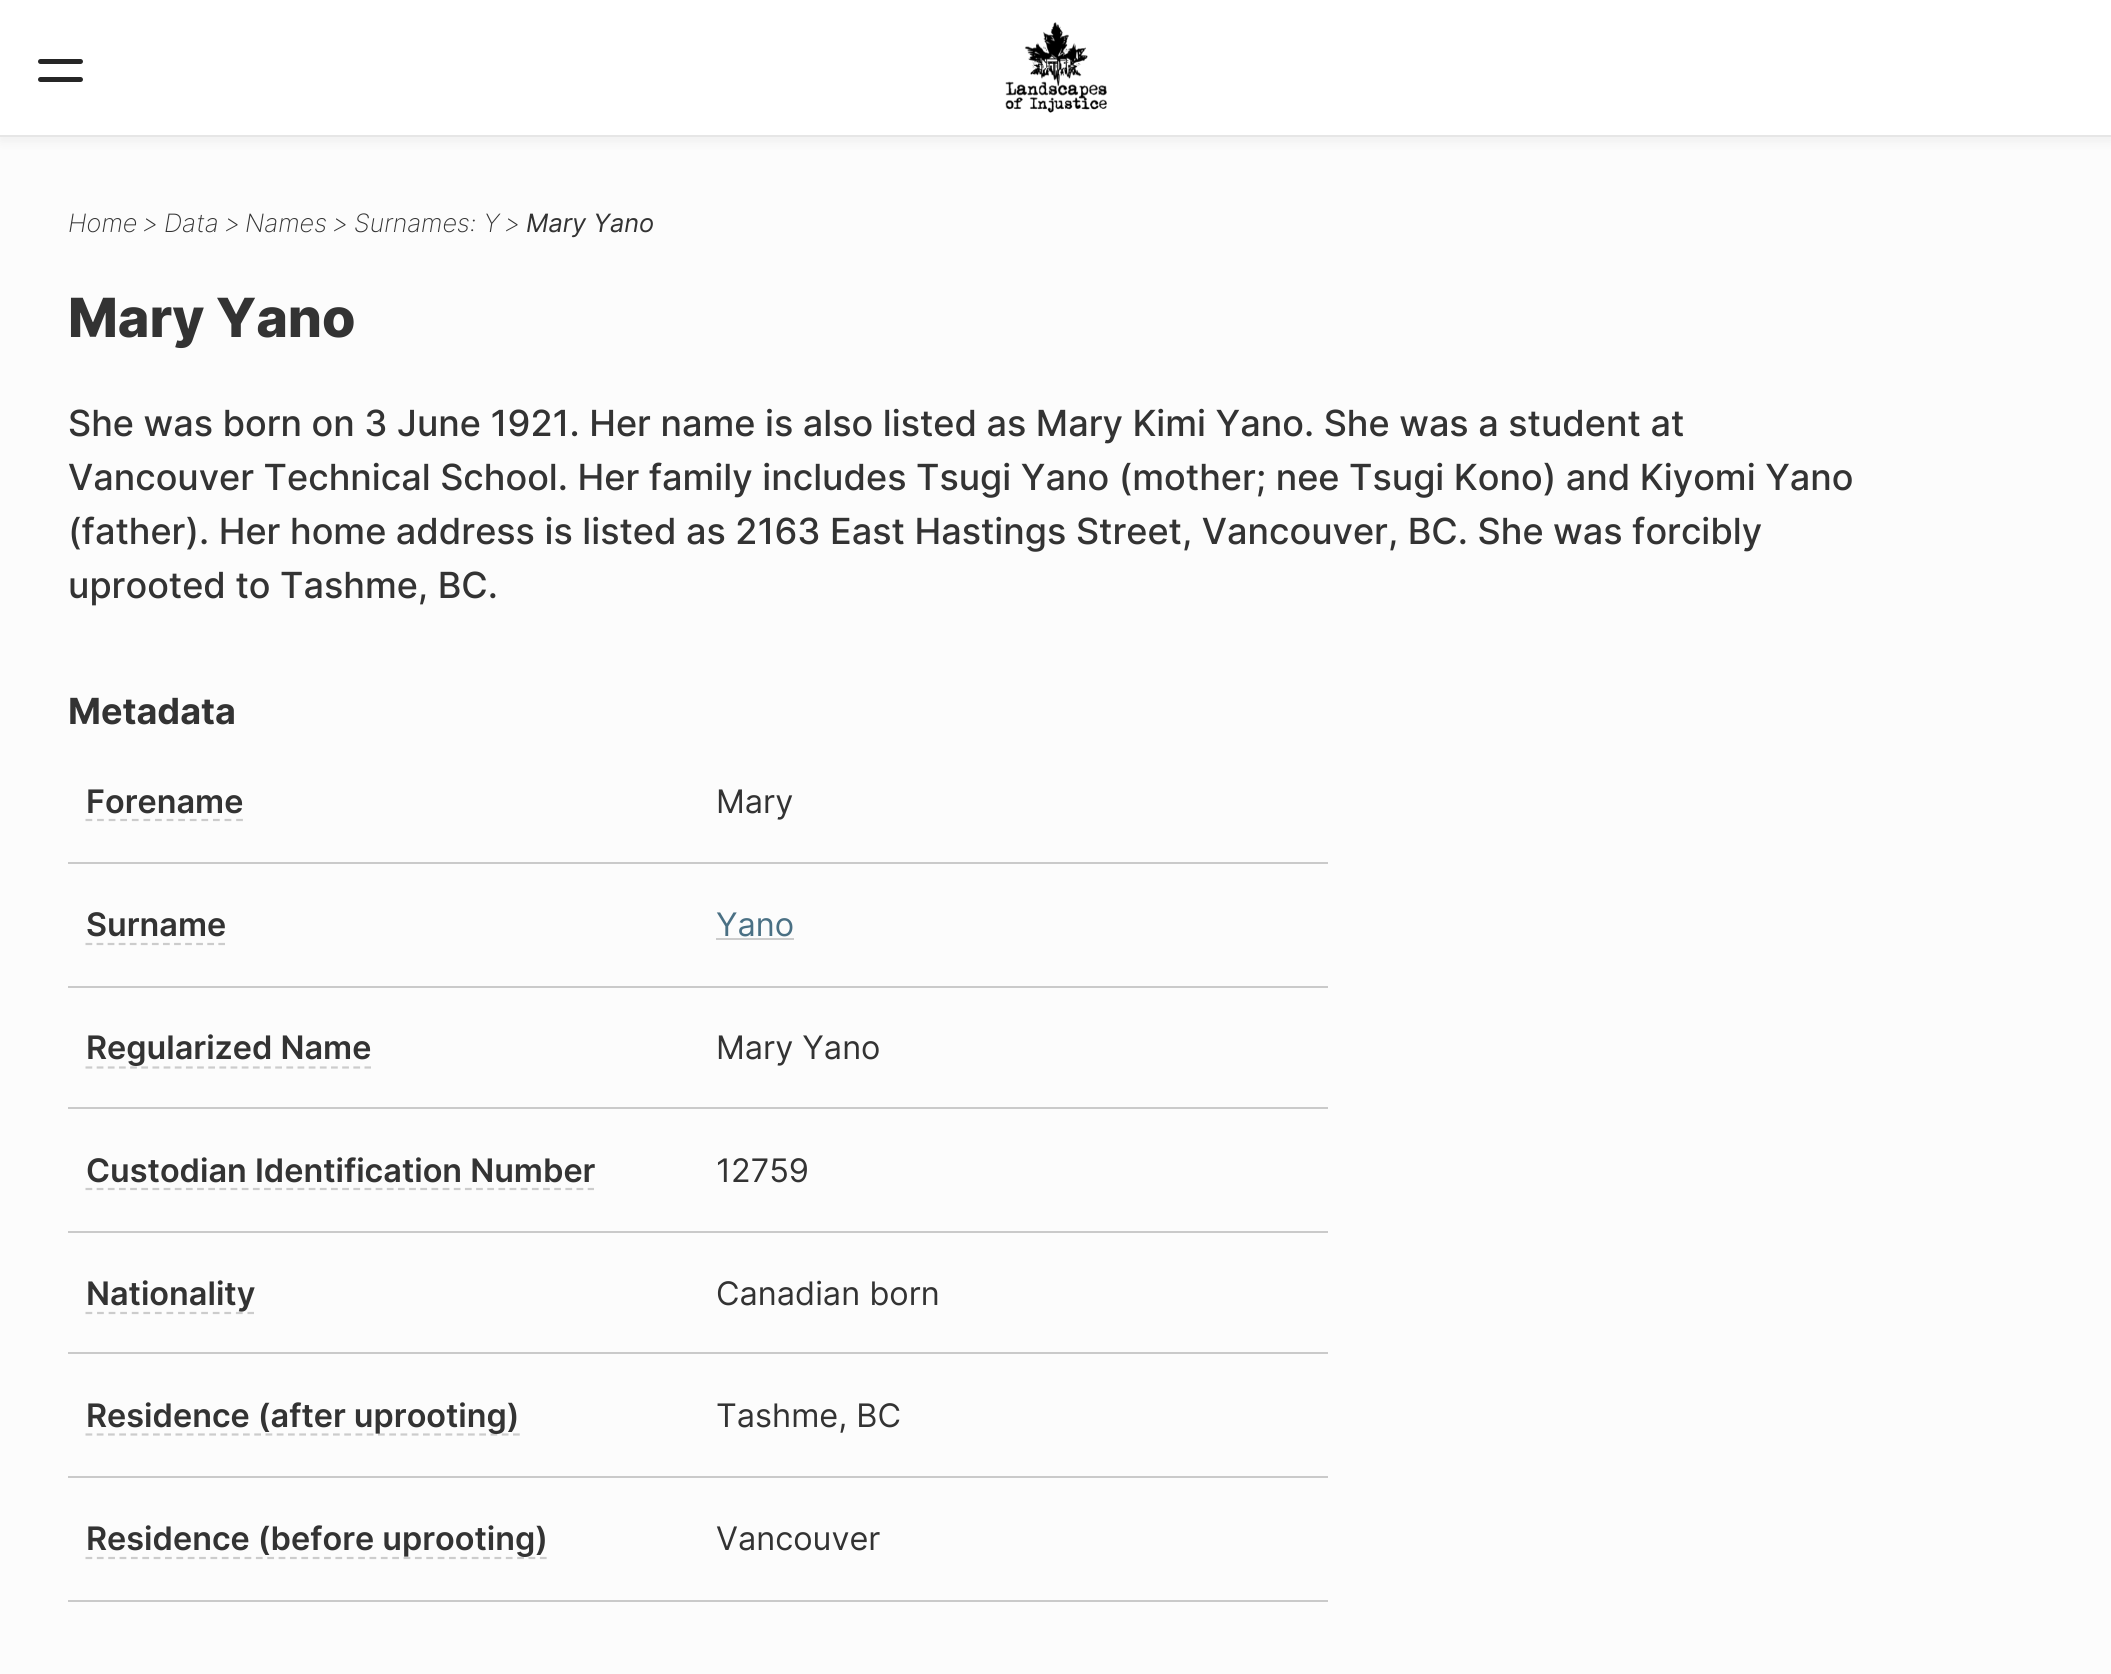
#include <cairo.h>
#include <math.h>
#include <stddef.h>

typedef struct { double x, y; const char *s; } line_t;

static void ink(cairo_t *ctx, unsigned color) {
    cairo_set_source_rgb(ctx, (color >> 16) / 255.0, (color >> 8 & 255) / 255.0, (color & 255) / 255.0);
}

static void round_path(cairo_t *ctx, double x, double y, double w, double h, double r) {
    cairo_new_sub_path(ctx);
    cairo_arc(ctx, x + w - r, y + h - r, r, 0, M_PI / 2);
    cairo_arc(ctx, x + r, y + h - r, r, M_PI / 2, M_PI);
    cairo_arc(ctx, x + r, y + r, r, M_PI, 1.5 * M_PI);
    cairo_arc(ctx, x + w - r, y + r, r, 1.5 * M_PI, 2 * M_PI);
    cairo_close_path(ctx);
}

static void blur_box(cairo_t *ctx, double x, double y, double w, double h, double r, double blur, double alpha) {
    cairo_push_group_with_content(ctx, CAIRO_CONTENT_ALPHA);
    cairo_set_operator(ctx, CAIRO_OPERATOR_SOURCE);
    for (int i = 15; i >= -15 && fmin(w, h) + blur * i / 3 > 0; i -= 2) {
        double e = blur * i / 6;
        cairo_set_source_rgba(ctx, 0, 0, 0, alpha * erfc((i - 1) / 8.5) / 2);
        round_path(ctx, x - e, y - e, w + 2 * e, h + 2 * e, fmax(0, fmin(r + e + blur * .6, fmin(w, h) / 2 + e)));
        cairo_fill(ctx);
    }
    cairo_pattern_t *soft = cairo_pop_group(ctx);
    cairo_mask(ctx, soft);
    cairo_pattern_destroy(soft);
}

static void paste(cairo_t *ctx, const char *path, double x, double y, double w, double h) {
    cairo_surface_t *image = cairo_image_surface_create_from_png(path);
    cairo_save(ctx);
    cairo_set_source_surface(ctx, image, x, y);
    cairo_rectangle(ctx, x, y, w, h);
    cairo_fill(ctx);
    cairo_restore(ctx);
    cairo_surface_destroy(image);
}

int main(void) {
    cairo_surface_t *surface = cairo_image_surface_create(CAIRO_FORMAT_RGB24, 2111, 1674);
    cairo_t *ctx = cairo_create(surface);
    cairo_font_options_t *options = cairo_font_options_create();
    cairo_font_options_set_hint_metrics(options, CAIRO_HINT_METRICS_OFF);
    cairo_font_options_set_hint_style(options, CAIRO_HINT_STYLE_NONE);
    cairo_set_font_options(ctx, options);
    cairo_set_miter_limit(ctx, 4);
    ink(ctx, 0xFCFCFC);
    cairo_paint(ctx);
    ink(ctx, 0x000000);
    blur_box(ctx, 0, 5, 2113, 137, 0, 5.5, 0.05);
    ink(ctx, 0xFFFFFF);
    cairo_rectangle(ctx, 0, 0, 2111, 135);
    cairo_fill(ctx);
    ink(ctx, 0xE6E6E6);
    cairo_rectangle(ctx, 0, 135, 2111, 2);
    cairo_fill(ctx);
    ink(ctx, 0x262626);
    round_path(ctx, 38, 59, 45, 5, 2.5);
    cairo_fill(ctx);
    round_path(ctx, 38, 77, 45, 5, 2.5);
    cairo_fill(ctx);
    paste(ctx, "media/1.png", 1005, 22, 102, 91);
    cairo_select_font_face(ctx, "Inter ExtraLight", CAIRO_FONT_SLANT_ITALIC, CAIRO_FONT_WEIGHT_NORMAL);
    cairo_set_font_size(ctx, 25.25);
    ink(ctx, 0x333333);
    {
        static const line_t items[] = {
            {68, 232, "Home"},
            {142, 232, ">"},
            {164, 232, "Data"},
            {224, 232, ">"},
            {245, 232, "Names"},
            {332, 232, ">"},
            {354, 232, "Surnames: Y"},
            {504, 232, ">"},
        };
        for (size_t i = 0; i < sizeof items / sizeof *items; i++) {
            cairo_move_to(ctx, items[i].x, items[i].y);
            cairo_show_text(ctx, items[i].s);
        }
    }
    cairo_select_font_face(ctx, "Inter", CAIRO_FONT_SLANT_ITALIC, CAIRO_FONT_WEIGHT_NORMAL);
    cairo_move_to(ctx, 526, 232);
    cairo_show_text(ctx, "Mary Yano");
    cairo_select_font_face(ctx, "Inter ExtraBold", CAIRO_FONT_SLANT_NORMAL, CAIRO_FONT_WEIGHT_NORMAL);
    cairo_set_font_size(ctx, 54);
    cairo_move_to(ctx, 68, 337);
    cairo_show_text(ctx, "Mary Yano");
    cairo_select_font_face(ctx, "Inter Medium", CAIRO_FONT_SLANT_NORMAL, CAIRO_FONT_WEIGHT_NORMAL);
    cairo_set_font_size(ctx, 36);
    {
        static const line_t items[] = {
            {68, 436, "She was born on 3 June 1921. Her name is also listed as Mary Kimi Yano. She was a student at"},
            {68, 490, "Vancouver Technical School. Her family includes Tsugi Yano (mother; nee Tsugi Kono) and Kiyomi Yano"},
            {68, 544, "(father). Her home address is listed as 2163 East Hastings Street, Vancouver, BC. She was forcibly"},
            {68, 598, "uprooted to Tashme, BC."},
        };
        for (size_t i = 0; i < sizeof items / sizeof *items; i++) {
            cairo_move_to(ctx, items[i].x, items[i].y);
            cairo_show_text(ctx, items[i].s);
        }
    }
    cairo_select_font_face(ctx, "Inter", CAIRO_FONT_SLANT_NORMAL, CAIRO_FONT_WEIGHT_BOLD);
    cairo_move_to(ctx, 68, 724);
    cairo_show_text(ctx, "Metadata");
    cairo_select_font_face(ctx, "Inter SemiBold", CAIRO_FONT_SLANT_NORMAL, CAIRO_FONT_WEIGHT_NORMAL);
    cairo_set_font_size(ctx, 32.4);
    cairo_move_to(ctx, 86, 813);
    cairo_show_text(ctx, "Forename");
    cairo_new_path(ctx);
    cairo_move_to(ctx, 85.5, 820);
    cairo_line_to(ctx, 243, 820);
    ink(ctx, 0xCCCCCC);
    cairo_set_line_width(ctx, 2.2);
    cairo_set_dash(ctx, (double[]){6.75, 4.84}, 2, 0);
    cairo_stroke(ctx);
    ink(ctx, 0xCACACA);
    cairo_rectangle(ctx, 68, 862, 1260, 2);
    cairo_fill(ctx);
    cairo_select_font_face(ctx, "Inter", CAIRO_FONT_SLANT_NORMAL, CAIRO_FONT_WEIGHT_NORMAL);
    ink(ctx, 0x333333);
    cairo_move_to(ctx, 716, 813);
    cairo_show_text(ctx, "Mary");
    cairo_select_font_face(ctx, "Inter SemiBold", CAIRO_FONT_SLANT_NORMAL, CAIRO_FONT_WEIGHT_NORMAL);
    cairo_move_to(ctx, 86, 936);
    cairo_show_text(ctx, "Surname");
    cairo_new_path(ctx);
    cairo_move_to(ctx, 85.5, 944);
    cairo_line_to(ctx, 225, 944);
    ink(ctx, 0xCCCCCC);
    cairo_set_dash(ctx, (double[]){6.75, 4.32}, 2, 0);
    cairo_stroke(ctx);
    ink(ctx, 0xCACACA);
    cairo_rectangle(ctx, 68, 986, 1260, 2);
    cairo_fill(ctx);
    cairo_select_font_face(ctx, "Inter", CAIRO_FONT_SLANT_NORMAL, CAIRO_FONT_WEIGHT_NORMAL);
    ink(ctx, 0x4A7084);
    cairo_move_to(ctx, 716, 936);
    cairo_show_text(ctx, "Yano");
    ink(ctx, 0xCCCCCC);
    cairo_rectangle(ctx, 716, 938, 78, 2);
    cairo_fill(ctx);
    cairo_select_font_face(ctx, "Inter SemiBold", CAIRO_FONT_SLANT_NORMAL, CAIRO_FONT_WEIGHT_NORMAL);
    ink(ctx, 0x333333);
    cairo_move_to(ctx, 86, 1059);
    cairo_show_text(ctx, "Regularized Name");
    cairo_new_path(ctx);
    cairo_move_to(ctx, 85.5, 1067.5);
    cairo_line_to(ctx, 371, 1067.5);
    ink(ctx, 0xCCCCCC);
    cairo_set_dash(ctx, (double[]){6.75, 4.41}, 2, 0);
    cairo_stroke(ctx);
    ink(ctx, 0xCACACA);
    cairo_rectangle(ctx, 68, 1107, 1260, 2);
    cairo_fill(ctx);
    cairo_select_font_face(ctx, "Inter", CAIRO_FONT_SLANT_NORMAL, CAIRO_FONT_WEIGHT_NORMAL);
    ink(ctx, 0x333333);
    cairo_move_to(ctx, 716, 1059);
    cairo_show_text(ctx, "Mary Yano");
    cairo_select_font_face(ctx, "Inter SemiBold", CAIRO_FONT_SLANT_NORMAL, CAIRO_FONT_WEIGHT_NORMAL);
    cairo_move_to(ctx, 86, 1182);
    cairo_show_text(ctx, "Custodian Identification Number");
    cairo_new_path(ctx);
    cairo_move_to(ctx, 85.5, 1189);
    cairo_line_to(ctx, 594, 1189);
    ink(ctx, 0xCCCCCC);
    cairo_stroke(ctx);
    ink(ctx, 0xCACACA);
    cairo_rectangle(ctx, 68, 1231, 1260, 2);
    cairo_fill(ctx);
    cairo_select_font_face(ctx, "Inter", CAIRO_FONT_SLANT_NORMAL, CAIRO_FONT_WEIGHT_NORMAL);
    ink(ctx, 0x333333);
    cairo_move_to(ctx, 716, 1182);
    cairo_show_text(ctx, "12759");
    cairo_new_path(ctx);
    cairo_move_to(ctx, 85.5, 1313);
    cairo_line_to(ctx, 254, 1313);
    ink(ctx, 0xCCCCCC);
    cairo_set_dash(ctx, (double[]){6.75, 4.82}, 2, 0);
    cairo_stroke(ctx);
    cairo_select_font_face(ctx, "Inter SemiBold", CAIRO_FONT_SLANT_NORMAL, CAIRO_FONT_WEIGHT_NORMAL);
    ink(ctx, 0x333333);
    cairo_move_to(ctx, 86, 1305);
    cairo_show_text(ctx, "Nationality");
    ink(ctx, 0xCACACA);
    cairo_rectangle(ctx, 68, 1352, 1260, 2);
    cairo_fill(ctx);
    cairo_select_font_face(ctx, "Inter", CAIRO_FONT_SLANT_NORMAL, CAIRO_FONT_WEIGHT_NORMAL);
    ink(ctx, 0x333333);
    cairo_move_to(ctx, 716, 1305);
    cairo_show_text(ctx, "Canadian born");
    cairo_new_path(ctx);
    cairo_move_to(ctx, 85.5, 1434.5);
    cairo_line_to(ctx, 520, 1434.5);
    ink(ctx, 0xCCCCCC);
    cairo_set_dash(ctx, (double[]){6.75, 4.5}, 2, 0);
    cairo_stroke(ctx);
    cairo_select_font_face(ctx, "Inter SemiBold", CAIRO_FONT_SLANT_NORMAL, CAIRO_FONT_WEIGHT_NORMAL);
    ink(ctx, 0x333333);
    cairo_move_to(ctx, 86, 1427);
    cairo_show_text(ctx, "Residence (after uprooting)");
    ink(ctx, 0xCACACA);
    cairo_rectangle(ctx, 68, 1476, 1260, 2);
    cairo_fill(ctx);
    cairo_select_font_face(ctx, "Inter", CAIRO_FONT_SLANT_NORMAL, CAIRO_FONT_WEIGHT_NORMAL);
    ink(ctx, 0x333333);
    cairo_move_to(ctx, 716, 1427);
    cairo_show_text(ctx, "Tashme, BC");
    cairo_new_path(ctx);
    cairo_move_to(ctx, 85.5, 1558);
    cairo_line_to(ctx, 547, 1558);
    ink(ctx, 0xCCCCCC);
    cairo_set_dash(ctx, (double[]){6.75, 4.61}, 2, 0);
    cairo_stroke(ctx);
    cairo_select_font_face(ctx, "Inter SemiBold", CAIRO_FONT_SLANT_NORMAL, CAIRO_FONT_WEIGHT_NORMAL);
    ink(ctx, 0x333333);
    cairo_move_to(ctx, 86, 1550);
    cairo_show_text(ctx, "Residence (before uprooting)");
    ink(ctx, 0xCACACA);
    cairo_rectangle(ctx, 68, 1600, 1260, 2);
    cairo_fill(ctx);
    cairo_select_font_face(ctx, "Inter", CAIRO_FONT_SLANT_NORMAL, CAIRO_FONT_WEIGHT_NORMAL);
    ink(ctx, 0x333333);
    cairo_move_to(ctx, 716, 1550);
    cairo_show_text(ctx, "Vancouver");
    cairo_surface_write_to_png(surface, "image.png");
    cairo_font_options_destroy(options);
    cairo_destroy(ctx);
    cairo_surface_destroy(surface);
    return 0;
}
